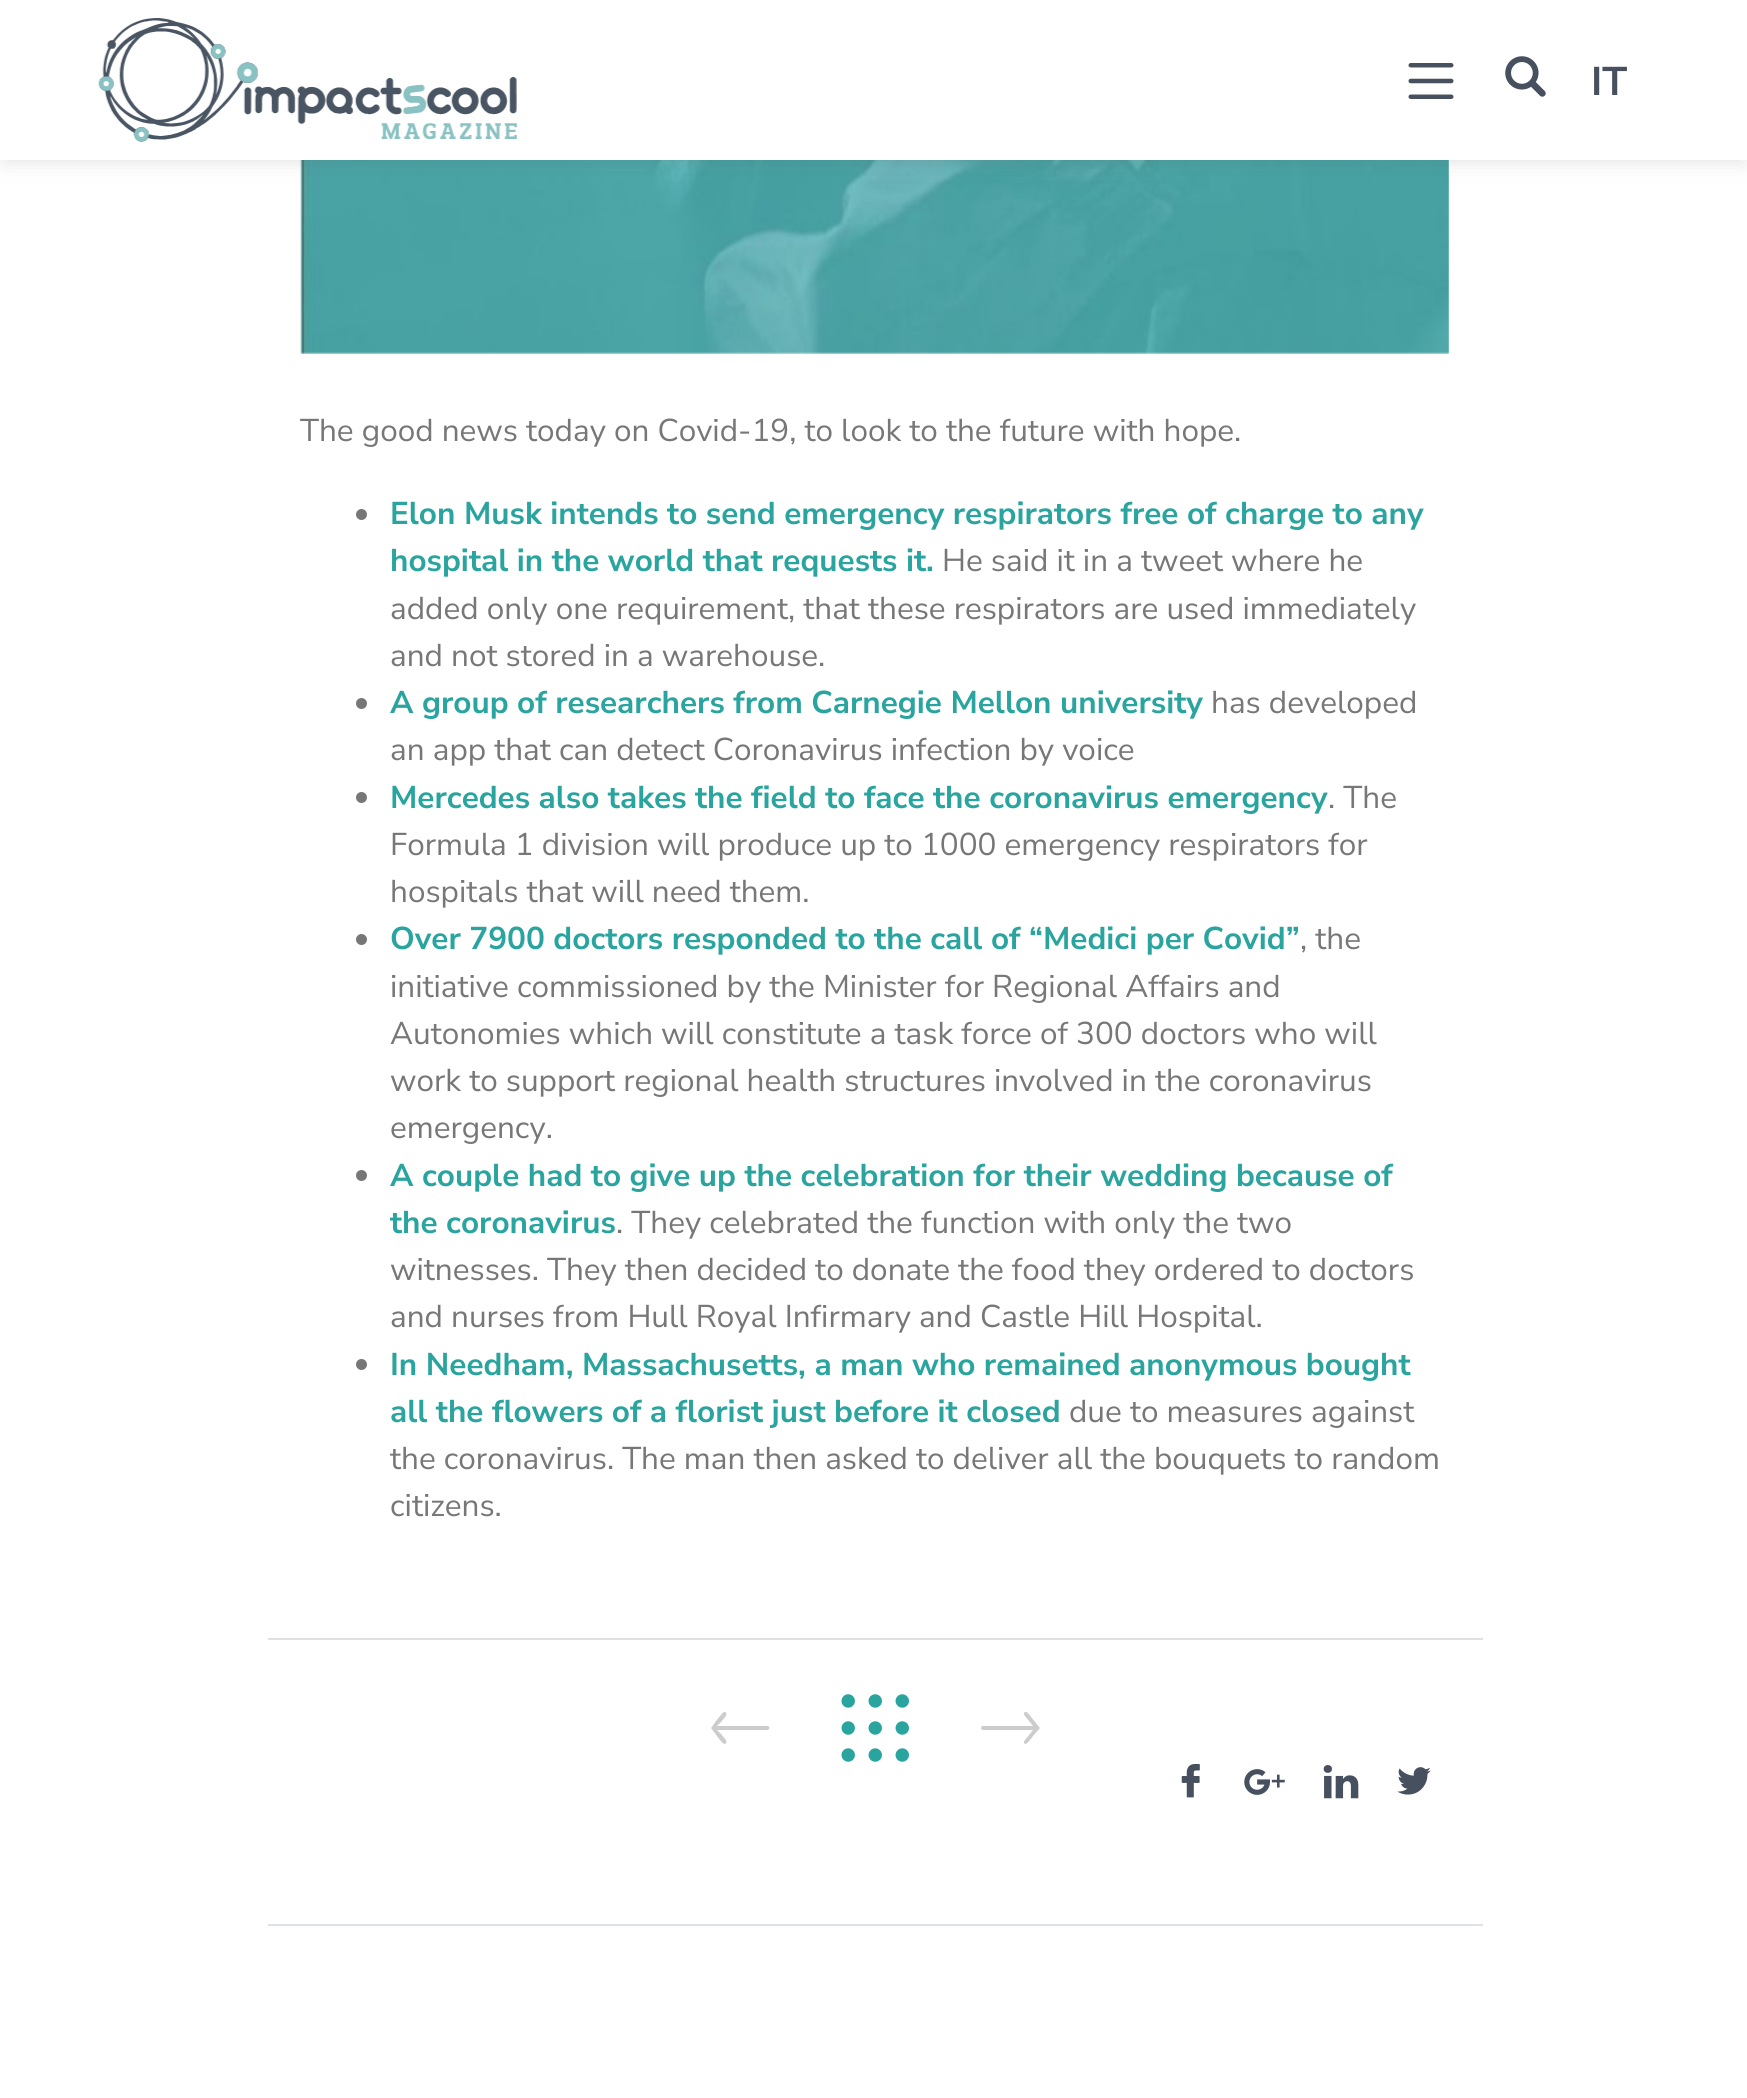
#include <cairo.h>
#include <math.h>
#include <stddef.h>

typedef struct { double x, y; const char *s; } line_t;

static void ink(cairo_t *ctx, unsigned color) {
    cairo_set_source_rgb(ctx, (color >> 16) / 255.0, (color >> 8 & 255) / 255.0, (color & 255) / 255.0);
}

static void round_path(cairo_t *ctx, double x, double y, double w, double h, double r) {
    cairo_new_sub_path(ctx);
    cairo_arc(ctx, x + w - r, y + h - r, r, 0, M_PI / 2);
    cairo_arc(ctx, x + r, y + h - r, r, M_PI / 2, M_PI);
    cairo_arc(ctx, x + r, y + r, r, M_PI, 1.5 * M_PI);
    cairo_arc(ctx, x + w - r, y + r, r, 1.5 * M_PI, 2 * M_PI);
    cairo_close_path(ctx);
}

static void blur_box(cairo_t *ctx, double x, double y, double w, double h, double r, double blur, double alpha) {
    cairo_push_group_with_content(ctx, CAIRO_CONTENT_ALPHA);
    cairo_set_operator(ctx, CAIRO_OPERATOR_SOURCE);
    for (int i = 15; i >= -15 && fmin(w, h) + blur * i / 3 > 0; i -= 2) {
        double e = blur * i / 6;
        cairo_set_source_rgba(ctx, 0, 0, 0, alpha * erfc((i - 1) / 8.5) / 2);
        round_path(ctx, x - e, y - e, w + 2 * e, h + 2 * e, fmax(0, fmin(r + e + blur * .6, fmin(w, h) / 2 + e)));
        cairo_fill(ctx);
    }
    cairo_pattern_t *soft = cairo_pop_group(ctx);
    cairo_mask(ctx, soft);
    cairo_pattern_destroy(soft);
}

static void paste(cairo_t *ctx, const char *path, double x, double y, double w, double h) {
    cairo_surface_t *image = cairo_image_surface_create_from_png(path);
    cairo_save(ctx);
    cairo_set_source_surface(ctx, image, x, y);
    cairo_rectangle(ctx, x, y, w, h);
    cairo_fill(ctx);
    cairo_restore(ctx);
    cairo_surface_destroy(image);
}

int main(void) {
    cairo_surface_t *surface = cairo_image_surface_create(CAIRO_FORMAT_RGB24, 1747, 2098);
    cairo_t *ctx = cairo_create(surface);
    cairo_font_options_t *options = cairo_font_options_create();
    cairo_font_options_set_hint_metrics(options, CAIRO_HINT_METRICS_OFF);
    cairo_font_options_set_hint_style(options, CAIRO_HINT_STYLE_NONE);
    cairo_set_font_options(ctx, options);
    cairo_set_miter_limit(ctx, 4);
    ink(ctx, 0xFFFFFF);
    cairo_paint(ctx);
    paste(ctx, "media/4.png", 300, 160, 1149, 194);
    ink(ctx, 0x545454);
    blur_box(ctx, 5, 9, 1739, 151, 0, 11, 0.2);
    ink(ctx, 0xFFFFFF);
    cairo_rectangle(ctx, 0, 0, 1747, 160);
    cairo_fill(ctx);
    paste(ctx, "media/1.png", 98, 18, 419, 124);
    paste(ctx, "media/2.png", 1408, 63, 46, 36);
    paste(ctx, "media/3.png", 1505, 56, 41, 41);
    cairo_select_font_face(ctx, "Nunito Sans", CAIRO_FONT_SLANT_NORMAL, CAIRO_FONT_WEIGHT_BOLD);
    cairo_set_font_size(ctx, 40);
    ink(ctx, 0x47505F);
    cairo_move_to(ctx, 1591, 95);
    cairo_show_text(ctx, "IT");
    cairo_select_font_face(ctx, "Nunito Sans", CAIRO_FONT_SLANT_NORMAL, CAIRO_FONT_WEIGHT_NORMAL);
    cairo_set_font_size(ctx, 31.5);
    ink(ctx, 0x777777);
    cairo_move_to(ctx, 300, 441);
    cairo_show_text(ctx, "The good news today on Covid-19, to look to the future with hope.");
    cairo_new_path(ctx);
    cairo_arc(ctx, 361.5, 514.5, 5.5, 0, 2 * M_PI);
    cairo_fill(ctx);
    cairo_select_font_face(ctx, "Nunito Sans", CAIRO_FONT_SLANT_NORMAL, CAIRO_FONT_WEIGHT_BOLD);
    ink(ctx, 0x29A49E);
    cairo_move_to(ctx, 390, 524);
    cairo_show_text(ctx, "Elon Musk intends to send emergency respirators free of charge to any");
    cairo_move_to(ctx, 390, 571);
    cairo_show_text(ctx, "hospital in the world that requests it.");
    cairo_select_font_face(ctx, "Nunito Sans", CAIRO_FONT_SLANT_NORMAL, CAIRO_FONT_WEIGHT_NORMAL);
    ink(ctx, 0x777777);
    {
        static const line_t items[] = {
            {942, 571, "He said it in a tweet where he"},
            {390, 619, "added only one requirement, that these respirators are used immediately"},
            {390, 666, "and not stored in a warehouse."},
        };
        for (size_t i = 0; i < sizeof items / sizeof *items; i++) {
            cairo_move_to(ctx, items[i].x, items[i].y);
            cairo_show_text(ctx, items[i].s);
        }
    }
    cairo_new_path(ctx);
    cairo_arc(ctx, 361.5, 703.5, 5.5, 0, 2 * M_PI);
    cairo_fill(ctx);
    cairo_select_font_face(ctx, "Nunito Sans", CAIRO_FONT_SLANT_NORMAL, CAIRO_FONT_WEIGHT_BOLD);
    ink(ctx, 0x29A49E);
    cairo_move_to(ctx, 390, 713);
    cairo_show_text(ctx, "A group of researchers from Carnegie Mellon university");
    cairo_select_font_face(ctx, "Nunito Sans", CAIRO_FONT_SLANT_NORMAL, CAIRO_FONT_WEIGHT_NORMAL);
    ink(ctx, 0x777777);
    cairo_move_to(ctx, 1211, 713);
    cairo_show_text(ctx, "has developed");
    cairo_move_to(ctx, 390, 760);
    cairo_show_text(ctx, "an app that can detect Coronavirus infection by voice");
    cairo_new_path(ctx);
    cairo_arc(ctx, 361.5, 797.5, 5.5, 0, 2 * M_PI);
    cairo_fill(ctx);
    cairo_select_font_face(ctx, "Nunito Sans", CAIRO_FONT_SLANT_NORMAL, CAIRO_FONT_WEIGHT_BOLD);
    ink(ctx, 0x29A49E);
    cairo_move_to(ctx, 390, 808);
    cairo_show_text(ctx, "Mercedes also takes the field to face the coronavirus emergency");
    cairo_select_font_face(ctx, "Nunito Sans", CAIRO_FONT_SLANT_NORMAL, CAIRO_FONT_WEIGHT_NORMAL);
    ink(ctx, 0x777777);
    {
        static const line_t items[] = {
            {1328, 808, ". The"},
            {390, 855, "Formula 1 division will produce up to 1000 emergency respirators for"},
            {390, 902, "hospitals that will need them."},
        };
        for (size_t i = 0; i < sizeof items / sizeof *items; i++) {
            cairo_move_to(ctx, items[i].x, items[i].y);
            cairo_show_text(ctx, items[i].s);
        }
    }
    cairo_new_path(ctx);
    cairo_arc(ctx, 361.5, 939.5, 5.5, 0, 2 * M_PI);
    cairo_fill(ctx);
    cairo_select_font_face(ctx, "Nunito Sans", CAIRO_FONT_SLANT_NORMAL, CAIRO_FONT_WEIGHT_BOLD);
    ink(ctx, 0x29A49E);
    cairo_move_to(ctx, 390, 949);
    cairo_show_text(ctx, "Over 7900 doctors responded to the call of “Medici per Covid”");
    cairo_select_font_face(ctx, "Nunito Sans", CAIRO_FONT_SLANT_NORMAL, CAIRO_FONT_WEIGHT_NORMAL);
    ink(ctx, 0x777777);
    {
        static const line_t items[] = {
            {1300, 949, ", the"},
            {390, 997, "initiative commissioned by the Minister for Regional Affairs and"},
            {390, 1044, "Autonomies which will constitute a task force of 300 doctors who will"},
            {390, 1091, "work to support regional health structures involved in the coronavirus"},
            {390, 1138, "emergency."},
        };
        for (size_t i = 0; i < sizeof items / sizeof *items; i++) {
            cairo_move_to(ctx, items[i].x, items[i].y);
            cairo_show_text(ctx, items[i].s);
        }
    }
    cairo_new_path(ctx);
    cairo_arc(ctx, 361.5, 1175.5, 5.5, 0, 2 * M_PI);
    cairo_fill(ctx);
    cairo_select_font_face(ctx, "Nunito Sans", CAIRO_FONT_SLANT_NORMAL, CAIRO_FONT_WEIGHT_BOLD);
    ink(ctx, 0x29A49E);
    cairo_move_to(ctx, 390, 1186);
    cairo_show_text(ctx, "A couple had to give up the celebration for their wedding because of");
    cairo_move_to(ctx, 390, 1233);
    cairo_show_text(ctx, "the coronavirus");
    cairo_select_font_face(ctx, "Nunito Sans", CAIRO_FONT_SLANT_NORMAL, CAIRO_FONT_WEIGHT_NORMAL);
    ink(ctx, 0x777777);
    {
        static const line_t items[] = {
            {616, 1233, ". They celebrated the function with only the two"},
            {390, 1280, "witnesses. They then decided to donate the food they ordered to doctors"},
            {390, 1327, "and nurses from Hull Royal Infirmary and Castle Hill Hospital."},
        };
        for (size_t i = 0; i < sizeof items / sizeof *items; i++) {
            cairo_move_to(ctx, items[i].x, items[i].y);
            cairo_show_text(ctx, items[i].s);
        }
    }
    cairo_new_path(ctx);
    cairo_arc(ctx, 361.5, 1364.5, 5.5, 0, 2 * M_PI);
    cairo_fill(ctx);
    cairo_select_font_face(ctx, "Nunito Sans", CAIRO_FONT_SLANT_NORMAL, CAIRO_FONT_WEIGHT_BOLD);
    ink(ctx, 0x29A49E);
    cairo_move_to(ctx, 390, 1375);
    cairo_show_text(ctx, "In Needham, Massachusetts, a man who remained anonymous bought");
    cairo_move_to(ctx, 390, 1422);
    cairo_show_text(ctx, "all the flowers of a florist just before it closed");
    cairo_select_font_face(ctx, "Nunito Sans", CAIRO_FONT_SLANT_NORMAL, CAIRO_FONT_WEIGHT_NORMAL);
    ink(ctx, 0x777777);
    {
        static const line_t items[] = {
            {1069, 1422, "due to measures against"},
            {390, 1469, "the coronavirus. The man then asked to deliver all the bouquets to random"},
            {390, 1516, "citizens."},
        };
        for (size_t i = 0; i < sizeof items / sizeof *items; i++) {
            cairo_move_to(ctx, items[i].x, items[i].y);
            cairo_show_text(ctx, items[i].s);
        }
    }
    ink(ctx, 0xDEE2E6);
    cairo_rectangle(ctx, 268, 1638, 1215, 2);
    cairo_fill(ctx);
    cairo_rectangle(ctx, 268, 1924, 1215, 2);
    cairo_fill(ctx);
    ink(ctx, 0xCCCCCC);
    cairo_new_path(ctx);
    cairo_move_to(ctx, 711, 1728);
    cairo_line_to(ctx, 717, 1736);
    cairo_curve_to(ctx, 718, 1737, 724, 1747, 726, 1743);
    cairo_curve_to(ctx, 728, 1741, 723, 1737, 722, 1735);
    cairo_line_to(ctx, 717, 1730);
    cairo_line_to(ctx, 768, 1730);
    cairo_curve_to(ctx, 769, 1729, 770, 1728, 769, 1727);
    cairo_line_to(ctx, 768, 1726);
    cairo_line_to(ctx, 717, 1726);
    cairo_line_to(ctx, 722, 1721);
    cairo_curve_to(ctx, 723, 1719, 728, 1715, 726, 1713);
    cairo_curve_to(ctx, 724, 1709, 720, 1717, 719, 1717);
    cairo_close_path(ctx);
    cairo_fill(ctx);
    paste(ctx, "media/5.png", 841, 1694, 68, 68);
    cairo_new_path(ctx);
    cairo_move_to(ctx, 1040, 1728);
    cairo_line_to(ctx, 1033, 1736);
    cairo_curve_to(ctx, 1032, 1737, 1026, 1747, 1024, 1743);
    cairo_curve_to(ctx, 1023, 1741, 1028, 1737, 1029, 1735);
    cairo_line_to(ctx, 1033, 1730);
    cairo_line_to(ctx, 983, 1730);
    cairo_line_to(ctx, 981, 1729);
    cairo_curve_to(ctx, 981, 1728, 981, 1727, 982, 1726);
    cairo_line_to(ctx, 1033, 1726);
    cairo_line_to(ctx, 1029, 1721);
    cairo_curve_to(ctx, 1028, 1719, 1023, 1715, 1024, 1713);
    cairo_curve_to(ctx, 1026, 1709, 1031, 1717, 1031, 1717);
    cairo_close_path(ctx);
    cairo_fill(ctx);
    paste(ctx, "media/6.png", 1181, 1764, 19, 34);
    paste(ctx, "media/7.png", 1244, 1769, 41, 26);
    paste(ctx, "media/8.png", 1323, 1765, 36, 34);
    paste(ctx, "media/9.png", 1397, 1767, 34, 28);
    cairo_surface_write_to_png(surface, "image.png");
    cairo_font_options_destroy(options);
    cairo_destroy(ctx);
    cairo_surface_destroy(surface);
    return 0;
}
